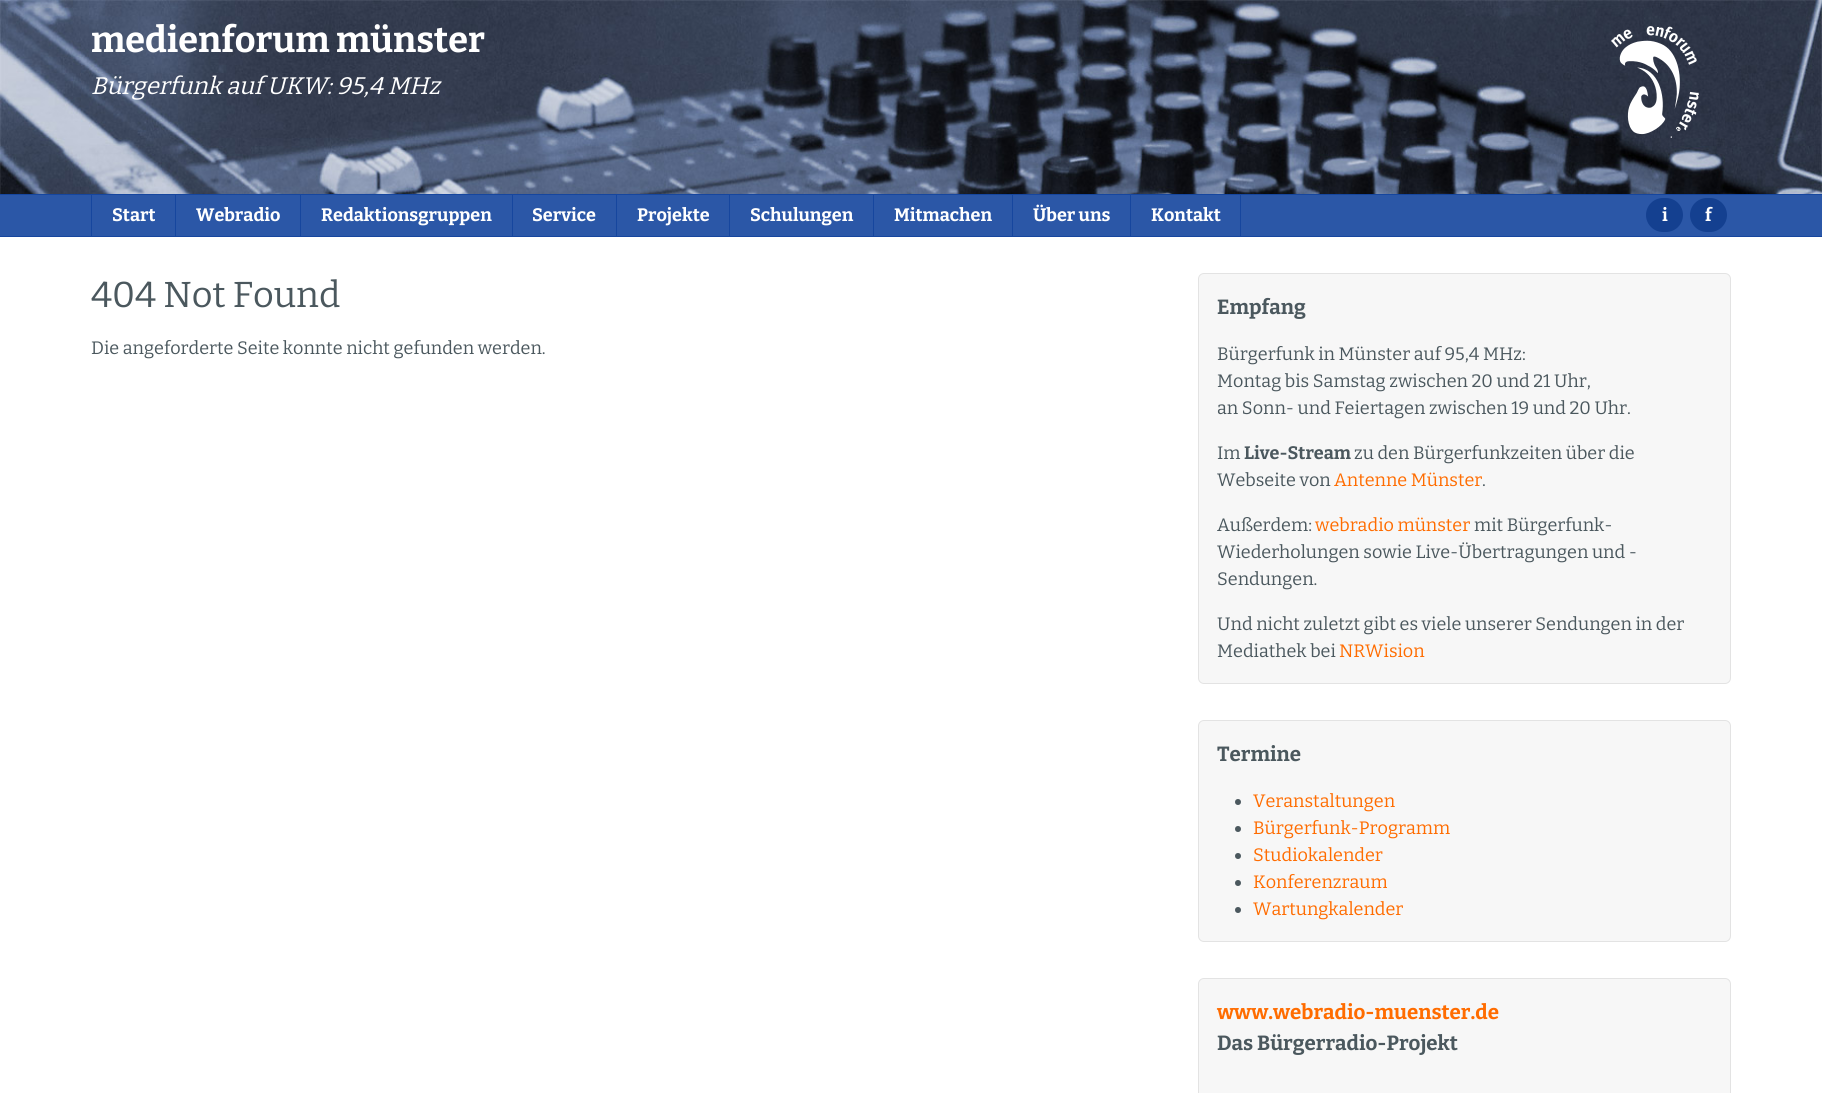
#include <cairo.h>
#include <math.h>
#include <stddef.h>

typedef struct { double x, y; const char *s; } line_t;
typedef struct { double x, y, w, h; unsigned color; } box_t;

static void ink(cairo_t *ctx, unsigned color) {
    cairo_set_source_rgb(ctx, (color >> 16) / 255.0, (color >> 8 & 255) / 255.0, (color & 255) / 255.0);
}

static void round_path(cairo_t *ctx, double x, double y, double w, double h, double r) {
    cairo_new_sub_path(ctx);
    cairo_arc(ctx, x + w - r, y + h - r, r, 0, M_PI / 2);
    cairo_arc(ctx, x + r, y + h - r, r, M_PI / 2, M_PI);
    cairo_arc(ctx, x + r, y + r, r, M_PI, 1.5 * M_PI);
    cairo_arc(ctx, x + w - r, y + r, r, 1.5 * M_PI, 2 * M_PI);
    cairo_close_path(ctx);
}

static void paste(cairo_t *ctx, const char *path, double x, double y, double w, double h) {
    cairo_surface_t *image = cairo_image_surface_create_from_png(path);
    cairo_save(ctx);
    cairo_set_source_surface(ctx, image, x, y);
    cairo_rectangle(ctx, x, y, w, h);
    cairo_fill(ctx);
    cairo_restore(ctx);
    cairo_surface_destroy(image);
}

int main(void) {
    cairo_surface_t *surface = cairo_image_surface_create(CAIRO_FORMAT_RGB24, 1822, 1093);
    cairo_t *ctx = cairo_create(surface);
    cairo_font_options_t *options = cairo_font_options_create();
    cairo_font_options_set_hint_metrics(options, CAIRO_HINT_METRICS_OFF);
    cairo_font_options_set_hint_style(options, CAIRO_HINT_STYLE_NONE);
    cairo_set_font_options(ctx, options);
    cairo_set_miter_limit(ctx, 4);
    ink(ctx, 0xFFFFFF);
    cairo_paint(ctx);
    paste(ctx, "media/1.png", 0, 0, 1822, 194);
    cairo_select_font_face(ctx, "Bitter", CAIRO_FONT_SLANT_NORMAL, CAIRO_FONT_WEIGHT_BOLD);
    cairo_set_font_size(ctx, 36);
    ink(ctx, 0xFFFFFF);
    cairo_move_to(ctx, 91, 52);
    cairo_show_text(ctx, "medienforum münster");
    paste(ctx, "media/2.png", 1611, 26, 88, 112);
    cairo_select_font_face(ctx, "Bitter", CAIRO_FONT_SLANT_ITALIC, CAIRO_FONT_WEIGHT_NORMAL);
    cairo_set_font_size(ctx, 24);
    cairo_move_to(ctx, 91, 94);
    cairo_show_text(ctx, "Bürgerfunk auf UKW: 95,4 MHz");
    {
        static const box_t items[] = {
            {0, 195, 1822, 41, 0x2B57A7},
            {0, 194, 1822, 1, 0x16469E},
            {0, 236, 1822, 1, 0x16469E},
            {175, 195, 1, 41, 0x16469E},
            {91, 195, 1, 41, 0x16469E},
        };
        for (size_t i = 0; i < sizeof items / sizeof *items; i++) {
            ink(ctx, items[i].color);
            cairo_rectangle(ctx, items[i].x, items[i].y, items[i].w, items[i].h);
            cairo_fill(ctx);
        }
    }
    cairo_select_font_face(ctx, "Bitter", CAIRO_FONT_SLANT_NORMAL, CAIRO_FONT_WEIGHT_BOLD);
    cairo_set_font_size(ctx, 18);
    ink(ctx, 0xFFFFFF);
    cairo_move_to(ctx, 112, 221);
    cairo_show_text(ctx, "Start");
    ink(ctx, 0x16469E);
    cairo_rectangle(ctx, 300, 195, 1, 41);
    cairo_fill(ctx);
    ink(ctx, 0xFFFFFF);
    cairo_move_to(ctx, 196, 221);
    cairo_show_text(ctx, "Webradio");
    ink(ctx, 0x16469E);
    cairo_rectangle(ctx, 512, 195, 1, 41);
    cairo_fill(ctx);
    ink(ctx, 0xFFFFFF);
    cairo_move_to(ctx, 321, 221);
    cairo_show_text(ctx, "Redaktionsgruppen");
    ink(ctx, 0x16469E);
    cairo_rectangle(ctx, 616, 195, 1, 41);
    cairo_fill(ctx);
    ink(ctx, 0xFFFFFF);
    cairo_move_to(ctx, 532, 221);
    cairo_show_text(ctx, "Service");
    ink(ctx, 0x16469E);
    cairo_rectangle(ctx, 729, 195, 1, 41);
    cairo_fill(ctx);
    ink(ctx, 0xFFFFFF);
    cairo_move_to(ctx, 637, 221);
    cairo_show_text(ctx, "Projekte");
    ink(ctx, 0x16469E);
    cairo_rectangle(ctx, 873, 195, 1, 41);
    cairo_fill(ctx);
    ink(ctx, 0xFFFFFF);
    cairo_move_to(ctx, 750, 221);
    cairo_show_text(ctx, "Schulungen");
    ink(ctx, 0x16469E);
    cairo_rectangle(ctx, 1012, 195, 1, 41);
    cairo_fill(ctx);
    ink(ctx, 0xFFFFFF);
    cairo_move_to(ctx, 894, 221);
    cairo_show_text(ctx, "Mitmachen");
    ink(ctx, 0x16469E);
    cairo_rectangle(ctx, 1130, 195, 1, 41);
    cairo_fill(ctx);
    ink(ctx, 0xFFFFFF);
    cairo_move_to(ctx, 1033, 221);
    cairo_show_text(ctx, "Über uns");
    ink(ctx, 0x16469E);
    cairo_rectangle(ctx, 1240, 195, 1, 41);
    cairo_fill(ctx);
    ink(ctx, 0xFFFFFF);
    cairo_move_to(ctx, 1151, 221);
    cairo_show_text(ctx, "Kontakt");
    ink(ctx, 0x144090);
    round_path(ctx, 1646, 198, 37, 34, 17);
    cairo_fill(ctx);
    ink(ctx, 0xFFFFFF);
    cairo_move_to(ctx, 1662, 221);
    cairo_show_text(ctx, "i");
    ink(ctx, 0x144090);
    round_path(ctx, 1690, 198, 37, 34, 17);
    cairo_fill(ctx);
    ink(ctx, 0xFFFFFF);
    cairo_move_to(ctx, 1705, 221);
    cairo_show_text(ctx, "f");
    cairo_select_font_face(ctx, "Bitter", CAIRO_FONT_SLANT_NORMAL, CAIRO_FONT_WEIGHT_NORMAL);
    cairo_set_font_size(ctx, 36);
    ink(ctx, 0x4B585E);
    cairo_move_to(ctx, 91, 307);
    cairo_show_text(ctx, "404 Not Found");
    cairo_set_font_size(ctx, 18);
    cairo_move_to(ctx, 91, 354);
    cairo_show_text(ctx, "Die angeforderte Seite konnte nicht gefunden werden.");
    ink(ctx, 0xF7F7F7);
    round_path(ctx, 1198.5, 273.5, 532, 410, 5.5);
    cairo_fill_preserve(ctx);
    ink(ctx, 0xE3E3E3);
    cairo_set_line_width(ctx, 1);
    cairo_stroke(ctx);
    cairo_select_font_face(ctx, "Bitter", CAIRO_FONT_SLANT_NORMAL, CAIRO_FONT_WEIGHT_BOLD);
    cairo_set_font_size(ctx, 20.5);
    ink(ctx, 0x4B585E);
    cairo_move_to(ctx, 1217, 314);
    cairo_show_text(ctx, "Empfang");
    cairo_select_font_face(ctx, "Bitter", CAIRO_FONT_SLANT_NORMAL, CAIRO_FONT_WEIGHT_NORMAL);
    cairo_set_font_size(ctx, 18);
    {
        static const line_t items[] = {
            {1217, 360, "Bürgerfunk in Münster auf 95,4 MHz:"},
            {1217, 387, "Montag bis Samstag zwischen 20 und 21 Uhr,"},
            {1217, 414, "an Sonn- und Feiertagen zwischen 19 und 20 Uhr."},
            {1217, 459, "Im"},
        };
        for (size_t i = 0; i < sizeof items / sizeof *items; i++) {
            cairo_move_to(ctx, items[i].x, items[i].y);
            cairo_show_text(ctx, items[i].s);
        }
    }
    cairo_select_font_face(ctx, "Bitter", CAIRO_FONT_SLANT_NORMAL, CAIRO_FONT_WEIGHT_BOLD);
    cairo_move_to(ctx, 1244, 459);
    cairo_show_text(ctx, "Live-Stream");
    cairo_select_font_face(ctx, "Bitter", CAIRO_FONT_SLANT_NORMAL, CAIRO_FONT_WEIGHT_NORMAL);
    cairo_move_to(ctx, 1354, 459);
    cairo_show_text(ctx, "zu den Bürgerfunkzeiten über die");
    cairo_move_to(ctx, 1217, 486);
    cairo_show_text(ctx, "Webseite von");
    ink(ctx, 0xFF6C00);
    cairo_move_to(ctx, 1334, 486);
    cairo_show_text(ctx, "Antenne Münster");
    ink(ctx, 0x4B585E);
    cairo_move_to(ctx, 1482, 486);
    cairo_show_text(ctx, ".");
    cairo_move_to(ctx, 1217, 531);
    cairo_show_text(ctx, "Außerdem:");
    ink(ctx, 0xFF6C00);
    cairo_move_to(ctx, 1315, 531);
    cairo_show_text(ctx, "webradio münster");
    ink(ctx, 0x4B585E);
    {
        static const line_t items[] = {
            {1474, 531, "mit Bürgerfunk-"},
            {1217, 558, "Wiederholungen sowie Live-Übertragungen und -"},
            {1217, 585, "Sendungen."},
            {1217, 630, "Und nicht zuletzt gibt es viele unserer Sendungen in der"},
            {1217, 657, "Mediathek bei"},
        };
        for (size_t i = 0; i < sizeof items / sizeof *items; i++) {
            cairo_move_to(ctx, items[i].x, items[i].y);
            cairo_show_text(ctx, items[i].s);
        }
    }
    ink(ctx, 0xFF6C00);
    cairo_move_to(ctx, 1339, 657);
    cairo_show_text(ctx, "NRWision");
    ink(ctx, 0xF7F7F7);
    round_path(ctx, 1198.5, 720.5, 532, 221, 5.5);
    cairo_fill_preserve(ctx);
    ink(ctx, 0xE3E3E3);
    cairo_stroke(ctx);
    cairo_select_font_face(ctx, "Bitter", CAIRO_FONT_SLANT_NORMAL, CAIRO_FONT_WEIGHT_BOLD);
    cairo_set_font_size(ctx, 20.5);
    ink(ctx, 0x4B585E);
    cairo_move_to(ctx, 1217, 761);
    cairo_show_text(ctx, "Termine");
    cairo_new_path(ctx);
    cairo_arc(ctx, 1238, 802, 3, 0, 2 * M_PI);
    cairo_fill(ctx);
    cairo_select_font_face(ctx, "Bitter", CAIRO_FONT_SLANT_NORMAL, CAIRO_FONT_WEIGHT_NORMAL);
    cairo_set_font_size(ctx, 18);
    ink(ctx, 0xFF6C00);
    cairo_move_to(ctx, 1253, 807);
    cairo_show_text(ctx, "Veranstaltungen");
    ink(ctx, 0x4B585E);
    cairo_new_path(ctx);
    cairo_arc(ctx, 1238, 829, 3, 0, 2 * M_PI);
    cairo_fill(ctx);
    ink(ctx, 0xFF6C00);
    cairo_move_to(ctx, 1253, 834);
    cairo_show_text(ctx, "Bürgerfunk-Programm");
    ink(ctx, 0x4B585E);
    cairo_new_path(ctx);
    cairo_arc(ctx, 1238, 856, 3, 0, 2 * M_PI);
    cairo_fill(ctx);
    ink(ctx, 0xFF6C00);
    cairo_move_to(ctx, 1253, 861);
    cairo_show_text(ctx, "Studiokalender");
    ink(ctx, 0x4B585E);
    cairo_new_path(ctx);
    cairo_arc(ctx, 1238, 883, 3, 0, 2 * M_PI);
    cairo_fill(ctx);
    ink(ctx, 0xFF6C00);
    cairo_move_to(ctx, 1253, 888);
    cairo_show_text(ctx, "Konferenzraum");
    ink(ctx, 0x4B585E);
    cairo_new_path(ctx);
    cairo_arc(ctx, 1238, 910, 3, 0, 2 * M_PI);
    cairo_fill(ctx);
    ink(ctx, 0xFF6C00);
    cairo_move_to(ctx, 1253, 915);
    cairo_show_text(ctx, "Wartungkalender");
    ink(ctx, 0xF7F7F7);
    round_path(ctx, 1198.5, 978.5, 532, 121, 5.5);
    cairo_fill_preserve(ctx);
    ink(ctx, 0xE3E3E3);
    cairo_stroke(ctx);
    cairo_select_font_face(ctx, "Bitter", CAIRO_FONT_SLANT_NORMAL, CAIRO_FONT_WEIGHT_BOLD);
    cairo_set_font_size(ctx, 20.5);
    ink(ctx, 0xFF6C00);
    cairo_move_to(ctx, 1217, 1019);
    cairo_show_text(ctx, "www.webradio-muenster.de");
    ink(ctx, 0x4B585E);
    cairo_move_to(ctx, 1217, 1050);
    cairo_show_text(ctx, "Das Bürgerradio-Projekt");
    cairo_surface_write_to_png(surface, "image.png");
    cairo_font_options_destroy(options);
    cairo_destroy(ctx);
    cairo_surface_destroy(surface);
    return 0;
}
